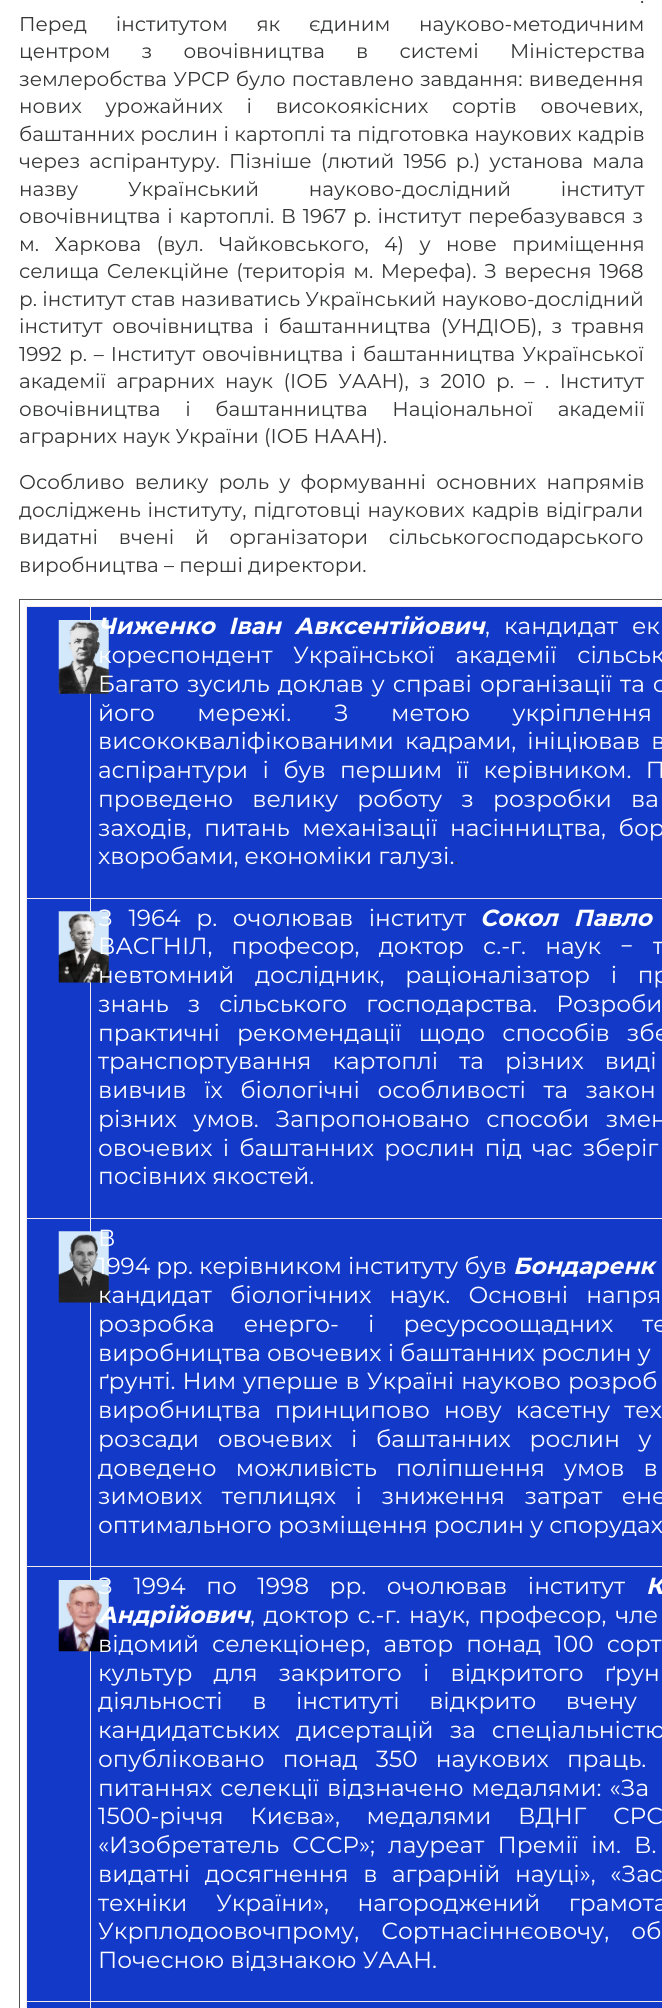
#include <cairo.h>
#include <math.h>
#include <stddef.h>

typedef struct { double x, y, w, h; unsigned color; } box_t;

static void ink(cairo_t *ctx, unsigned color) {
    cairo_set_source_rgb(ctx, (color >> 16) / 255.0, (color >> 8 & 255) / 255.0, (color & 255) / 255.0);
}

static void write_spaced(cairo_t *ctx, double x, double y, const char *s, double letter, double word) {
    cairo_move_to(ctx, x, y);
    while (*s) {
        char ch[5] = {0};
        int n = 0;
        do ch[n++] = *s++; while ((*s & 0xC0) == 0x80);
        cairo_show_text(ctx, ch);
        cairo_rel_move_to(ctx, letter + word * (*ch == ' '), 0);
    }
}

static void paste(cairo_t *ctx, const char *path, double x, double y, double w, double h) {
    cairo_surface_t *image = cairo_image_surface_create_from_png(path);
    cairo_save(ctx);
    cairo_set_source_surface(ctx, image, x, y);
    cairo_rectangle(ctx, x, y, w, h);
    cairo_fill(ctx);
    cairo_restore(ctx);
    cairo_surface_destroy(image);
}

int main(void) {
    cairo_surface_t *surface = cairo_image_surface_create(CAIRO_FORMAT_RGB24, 662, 2008);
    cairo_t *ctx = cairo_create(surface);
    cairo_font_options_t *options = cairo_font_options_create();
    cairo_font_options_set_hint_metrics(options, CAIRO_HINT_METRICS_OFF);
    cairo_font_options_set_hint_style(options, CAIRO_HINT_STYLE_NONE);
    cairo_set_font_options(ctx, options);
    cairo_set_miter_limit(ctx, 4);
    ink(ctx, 0xFFFFFF);
    cairo_paint(ctx);
    cairo_select_font_face(ctx, "Montserrat", CAIRO_FONT_SLANT_NORMAL, CAIRO_FONT_WEIGHT_NORMAL);
    cairo_set_font_size(ctx, 20);
    ink(ctx, 0x343536);
    write_spaced(ctx, 640, 3, ".", 0, 16);
    write_spaced(ctx, 19, 31, "Перед інститутом як єдиним науково-методичним", 0, 23.5);
    write_spaced(ctx, 19, 58, "центром з овочівництва в системі Міністерства", 0, 26);
    write_spaced(ctx, 19, 86, "землеробства УРСР було поставлено завдання: виведення", 0, 1);
    write_spaced(ctx, 19, 113, "нових урожайних і високоякісних сортів овочевих,", 0, 18.5);
    write_spaced(ctx, 19, 141, "баштанних рослин і картоплі та підготовка наукових кадрів", 0, 0.25);
    write_spaced(ctx, 19, 168, "через аспірантуру. Пізніше (лютий 1956 р.) установа мала", 0, 4);
    write_spaced(ctx, 19, 196, "назву Український науково-дослідний інститут", 0, 44.5);
    write_spaced(ctx, 19, 223, "овочівництва і картоплі. В 1967 р. інститут перебазувався з", 0, 1.5);
    write_spaced(ctx, 19, 251, "м. Харкова (вул. Чайковського, 4) у нове приміщення", 0, 10.25);
    write_spaced(ctx, 19, 278, "селища Селекційне (територія м. Мерефа). З вересня 1968", 0, 2.25);
    cairo_move_to(ctx, 19, 306);
    cairo_show_text(ctx, "р. інститут став називатись Український науково-дослідний");
    write_spaced(ctx, 19, 333, "інститут овочівництва і баштанництва (УНДІОБ), з травня", 0, 4.5);
    write_spaced(ctx, 19, 361, "1992 р. – Інститут овочівництва і баштанництва Української", 0, 1.75);
    write_spaced(ctx, 19, 388, "академії аграрних наук (ІОБ УААН), з 2010 р. – . Інститут", 0, 5.25);
    write_spaced(ctx, 19, 416, "овочівництва і баштанництва Національної академії", 0, 19.5);
    cairo_move_to(ctx, 19, 443);
    cairo_show_text(ctx, "аграрних наук України (ІОБ НААН).");
    write_spaced(ctx, 19, 489, "Особливо велику роль у формуванні основних напрямів", 0, 5);
    write_spaced(ctx, 19, 517, "досліджень інституту, підготовці наукових кадрів відіграли", 0, 1.5);
    write_spaced(ctx, 19, 544, "видатні вчені й організатори сільськогосподарського", 0, 15.5);
    cairo_move_to(ctx, 19, 572);
    cairo_show_text(ctx, "виробництва – перші директори.");
    {
        static const box_t items[] = {
            {19, 599, 643, 1, 0x555555},
            {19, 599, 1, 1409, 0x555555},
            {27, 607, 635, 1401, 0x1239C7},
            {90, 606, 572, 1, 0xF5EBEB},
            {90, 898, 572, 1, 0xF5EBEB},
            {90, 1218, 572, 1, 0xF5EBEB},
            {90, 1566, 572, 1, 0xF5EBEB},
            {90, 2001, 572, 1, 0xF5EBEB},
            {90, 2001, 1, 7, 0xF5EBEB},
            {26, 2001, 65, 1, 0xF5EBEB},
            {90, 1566, 1, 437, 0xF5EBEB},
            {26, 1566, 65, 1, 0xF5EBEB},
            {90, 1218, 1, 350, 0xF5EBEB},
            {26, 1218, 65, 1, 0xF5EBEB},
            {90, 898, 1, 321, 0xF5EBEB},
            {26, 898, 65, 1, 0xF5EBEB},
            {90, 606, 1, 293, 0xF5EBEB},
            {26, 606, 65, 1, 0xF5EBEB},
            {26, 2001, 1, 7, 0xF5EBEB},
            {26, 1566, 1, 437, 0xF5EBEB},
            {26, 1218, 1, 350, 0xF5EBEB},
            {26, 898, 1, 321, 0xF5EBEB},
            {26, 606, 1, 293, 0xF5EBEB},
        };
        for (size_t i = 0; i < sizeof items / sizeof *items; i++) {
            ink(ctx, items[i].color);
            cairo_rectangle(ctx, items[i].x, items[i].y, items[i].w, items[i].h);
            cairo_fill(ctx);
        }
    }
    paste(ctx, "media/1.png", 58, 620, 51, 74);
    cairo_select_font_face(ctx, "Montserrat", CAIRO_FONT_SLANT_ITALIC, CAIRO_FONT_WEIGHT_BOLD);
    cairo_set_font_size(ctx, 23.3);
    ink(ctx, 0xFFFFFF);
    write_spaced(ctx, 98, 634, "Чиженко Іван Авксентійович", 0, 7);
    cairo_select_font_face(ctx, "Montserrat", CAIRO_FONT_SLANT_NORMAL, CAIRO_FONT_WEIGHT_NORMAL);
    write_spaced(ctx, 485, 634, ", кандидат ек", 0, 8);
    write_spaced(ctx, 98, 663, "кореспондент Української академії сільськ", 0, 14.5);
    write_spaced(ctx, 98, 692, "Багато зусиль доклав у справі організації та с", 0, 2);
    write_spaced(ctx, 98, 721, "його мережі. З метою укріплення", 0, 36.5);
    write_spaced(ctx, 98, 749, "висококваліфікованими кадрами, ініціював в", 0, 5);
    write_spaced(ctx, 98, 778, "аспірантури і був першим її керівником. П", 0, 8.25);
    write_spaced(ctx, 98, 807, "проведено велику роботу з розробки ва", 0, 13);
    write_spaced(ctx, 98, 836, "заходів, питань механізації насінництва, бор", 0, 6.5);
    cairo_move_to(ctx, 98, 864);
    cairo_show_text(ctx, "хворобами, економіки галузі.");
    cairo_set_font_size(ctx, 20);
    ink(ctx, 0x343536);
    cairo_move_to(ctx, 454, 864);
    cairo_show_text(ctx, ".");
    paste(ctx, "media/2.png", 58, 911, 51, 72);
    cairo_set_font_size(ctx, 23.3);
    ink(ctx, 0xFFFFFF);
    write_spaced(ctx, 98, 926, "З 1964 р. очолював інститут", 0, 9.5);
    cairo_select_font_face(ctx, "Montserrat", CAIRO_FONT_SLANT_ITALIC, CAIRO_FONT_WEIGHT_BOLD);
    write_spaced(ctx, 480, 926, "Сокол Павло", 0, 9);
    cairo_select_font_face(ctx, "Montserrat", CAIRO_FONT_SLANT_NORMAL, CAIRO_FONT_WEIGHT_NORMAL);
    write_spaced(ctx, 98, 954, "ВАСГНІЛ, професор, доктор с.-г. наук − т", 0, 13);
    write_spaced(ctx, 98, 983, "невтомний дослідник, раціоналізатор і пр", 0, 14.5);
    write_spaced(ctx, 98, 1012, "знань з сільського господарства. Розроби", 0, 13);
    write_spaced(ctx, 98, 1041, "практичні рекомендації щодо способів збе", 0, 11);
    write_spaced(ctx, 98, 1069, "транспортування картоплі та різних виді", 0, 15);
    write_spaced(ctx, 98, 1098, "вивчив їх біологічні особливості та закон", 0, 11.5);
    write_spaced(ctx, 98, 1127, "різних умов. Запропоновано способи змен", 0, 10.5);
    write_spaced(ctx, 98, 1156, "овочевих і баштанних рослин під час зберіг", 0, 4);
    cairo_move_to(ctx, 98, 1184);
    cairo_show_text(ctx, "посівних якостей.");
    paste(ctx, "media/3.png", 58, 1231, 51, 72);
    cairo_move_to(ctx, 98, 1246);
    cairo_show_text(ctx, "В");
    cairo_move_to(ctx, 98, 1274);
    cairo_show_text(ctx, "1994 pp. керівником інституту був");
    cairo_select_font_face(ctx, "Montserrat", CAIRO_FONT_SLANT_ITALIC, CAIRO_FONT_WEIGHT_BOLD);
    cairo_move_to(ctx, 513, 1274);
    cairo_show_text(ctx, "Бондаренк");
    cairo_select_font_face(ctx, "Montserrat", CAIRO_FONT_SLANT_NORMAL, CAIRO_FONT_WEIGHT_NORMAL);
    write_spaced(ctx, 98, 1303, "кандидат біологічних наук. Основні напря", 0, 12);
    write_spaced(ctx, 98, 1332, "розробка енерго- і ресурсоощадних те", 0, 23);
    cairo_move_to(ctx, 98, 1361);
    cairo_show_text(ctx, "виробництва овочевих і баштанних рослин у");
    write_spaced(ctx, 98, 1389, "ґрунті. Ним уперше в Україні науково розроб", 0, 1);
    write_spaced(ctx, 98, 1418, "виробництва принципово нову касетну тех", 0, 8);
    write_spaced(ctx, 98, 1447, "розсади овочевих і баштанних рослин у", 0, 12.5);
    write_spaced(ctx, 98, 1476, "доведено можливість поліпшення умов в", 0, 13);
    write_spaced(ctx, 98, 1504, "зимових теплицях і зниження затрат ене", 0, 13.5);
    cairo_move_to(ctx, 98, 1533);
    cairo_show_text(ctx, "оптимального розміщення рослин у спорудах");
    paste(ctx, "media/4.png", 58, 1580, 51, 72);
    write_spaced(ctx, 98, 1594, "З 1994 по 1998 pp. очолював інститут", 0, 14.5);
    cairo_select_font_face(ctx, "Montserrat", CAIRO_FONT_SLANT_ITALIC, CAIRO_FONT_WEIGHT_BOLD);
    write_spaced(ctx, 646, 1594, "К", 0, 14.5);
    cairo_move_to(ctx, 98, 1623);
    cairo_show_text(ctx, "Андрійович");
    cairo_select_font_face(ctx, "Montserrat", CAIRO_FONT_SLANT_NORMAL, CAIRO_FONT_WEIGHT_NORMAL);
    write_spaced(ctx, 250, 1623, ", доктор с.-г. наук, професор, чле", 0, 2.5);
    write_spaced(ctx, 98, 1652, "відомий селекціонер, автор понад 100 сорт", 0, 7);
    write_spaced(ctx, 98, 1681, "культур для закритого і відкритого ґрун", 0, 15);
    write_spaced(ctx, 98, 1709, "діяльності в інституті відкрито вчену", 0, 23.5);
    write_spaced(ctx, 98, 1738, "кандидатських дисертацій за спеціальністю", 0, 10);
    write_spaced(ctx, 98, 1767, "опубліковано понад 350 наукових праць.", 0, 12);
    write_spaced(ctx, 98, 1796, "питаннях селекції відзначено медалями: «За", 0, 2);
    write_spaced(ctx, 98, 1824, "1500-річчя Києва», медалями ВДНГ СРС", 0, 20.5);
    write_spaced(ctx, 98, 1853, "«Изобретатель СССР»; лауреат Премії ім. В.", 0, 7);
    write_spaced(ctx, 98, 1882, "видатні досягнення в аграрній науці», «Зас", 0, 8.5);
    write_spaced(ctx, 98, 1911, "техніки України», нагороджений грамота", 0, 22.5);
    write_spaced(ctx, 98, 1939, "Укрплодоовочпрому, Сортнасіннєовочу, об", 0, 16);
    cairo_move_to(ctx, 98, 1968);
    cairo_show_text(ctx, "Почесною відзнакою УААН.");
    cairo_surface_write_to_png(surface, "image.png");
    cairo_font_options_destroy(options);
    cairo_destroy(ctx);
    cairo_surface_destroy(surface);
    return 0;
}
